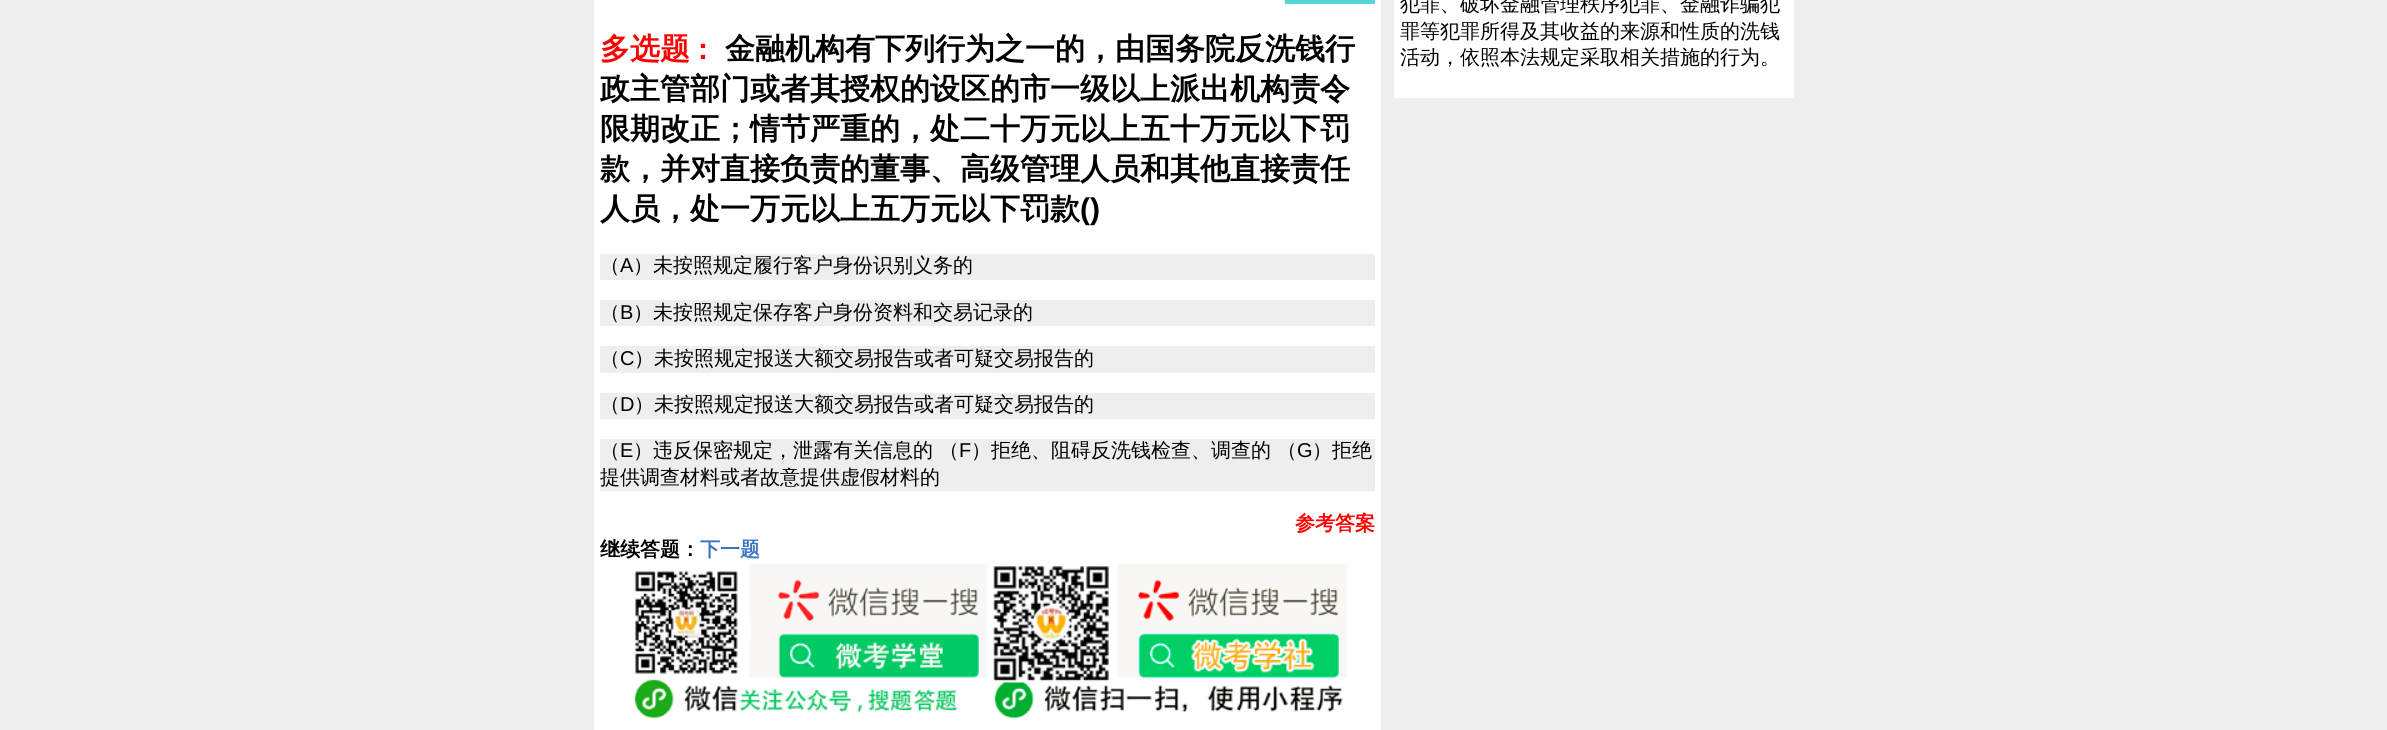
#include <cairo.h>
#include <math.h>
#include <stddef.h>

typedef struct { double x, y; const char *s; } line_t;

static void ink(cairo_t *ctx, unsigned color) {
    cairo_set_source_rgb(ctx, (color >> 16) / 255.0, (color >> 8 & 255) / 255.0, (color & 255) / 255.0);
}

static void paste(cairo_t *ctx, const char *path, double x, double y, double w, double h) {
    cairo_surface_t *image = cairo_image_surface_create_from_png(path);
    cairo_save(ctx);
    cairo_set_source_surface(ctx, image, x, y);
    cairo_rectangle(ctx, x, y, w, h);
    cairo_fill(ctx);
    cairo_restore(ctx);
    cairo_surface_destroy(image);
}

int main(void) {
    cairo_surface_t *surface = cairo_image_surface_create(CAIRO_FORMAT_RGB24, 2387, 730);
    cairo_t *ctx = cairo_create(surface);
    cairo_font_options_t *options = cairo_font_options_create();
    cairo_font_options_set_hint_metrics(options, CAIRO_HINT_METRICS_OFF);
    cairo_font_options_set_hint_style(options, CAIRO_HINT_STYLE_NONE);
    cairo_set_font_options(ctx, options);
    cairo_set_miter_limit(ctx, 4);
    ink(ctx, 0xEFEFEF);
    cairo_paint(ctx);
    ink(ctx, 0xFFFFFF);
    cairo_rectangle(ctx, 594, 0, 787, 730);
    cairo_fill(ctx);
    ink(ctx, 0x55D5D6);
    cairo_rectangle(ctx, 1285, 0, 90, 4);
    cairo_fill(ctx);
    cairo_select_font_face(ctx, "WenQuanYi Zen Hei", CAIRO_FONT_SLANT_NORMAL, CAIRO_FONT_WEIGHT_BOLD);
    cairo_set_font_size(ctx, 30);
    ink(ctx, 0xFF0000);
    cairo_move_to(ctx, 600, 59);
    cairo_show_text(ctx, "多选题");
    cairo_select_font_face(ctx, "Liberation Sans", CAIRO_FONT_SLANT_NORMAL, CAIRO_FONT_WEIGHT_BOLD);
    cairo_move_to(ctx, 698, 59);
    cairo_show_text(ctx, ":");
    cairo_select_font_face(ctx, "WenQuanYi Zen Hei", CAIRO_FONT_SLANT_NORMAL, CAIRO_FONT_WEIGHT_BOLD);
    ink(ctx, 0x000000);
    {
        static const line_t items[] = {
            {725, 59, "金融机构有下列行为之一的，由国务院反洗钱行"},
            {600, 99, "政主管部门或者其授权的设区的市一级以上派出机构责令"},
            {600, 139, "限期改正；情节严重的，处二十万元以上五十万元以下罚"},
            {600, 179, "款，并对直接负责的董事、高级管理人员和其他直接责任"},
            {600, 219, "人员，处一万元以上五万元以下罚款"},
        };
        for (size_t i = 0; i < sizeof items / sizeof *items; i++) {
            cairo_move_to(ctx, items[i].x, items[i].y);
            cairo_show_text(ctx, items[i].s);
        }
    }
    cairo_select_font_face(ctx, "Liberation Sans", CAIRO_FONT_SLANT_NORMAL, CAIRO_FONT_WEIGHT_BOLD);
    cairo_move_to(ctx, 1080, 219);
    cairo_show_text(ctx, "()");
    ink(ctx, 0xEEEEEE);
    cairo_rectangle(ctx, 600, 254, 775, 26);
    cairo_fill(ctx);
    cairo_select_font_face(ctx, "WenQuanYi Zen Hei Medium", CAIRO_FONT_SLANT_NORMAL, CAIRO_FONT_WEIGHT_NORMAL);
    cairo_set_font_size(ctx, 20);
    ink(ctx, 0x000000);
    cairo_move_to(ctx, 600, 272);
    cairo_show_text(ctx, "（");
    cairo_select_font_face(ctx, "Liberation Sans", CAIRO_FONT_SLANT_NORMAL, CAIRO_FONT_WEIGHT_NORMAL);
    cairo_move_to(ctx, 620, 272);
    cairo_show_text(ctx, "A");
    cairo_select_font_face(ctx, "WenQuanYi Zen Hei Medium", CAIRO_FONT_SLANT_NORMAL, CAIRO_FONT_WEIGHT_NORMAL);
    cairo_move_to(ctx, 633, 272);
    cairo_show_text(ctx, "）未按照规定履行客户身份识别义务的");
    ink(ctx, 0xEEEEEE);
    cairo_rectangle(ctx, 600, 300, 775, 26);
    cairo_fill(ctx);
    ink(ctx, 0x000000);
    cairo_move_to(ctx, 600, 319);
    cairo_show_text(ctx, "（");
    cairo_select_font_face(ctx, "Liberation Sans", CAIRO_FONT_SLANT_NORMAL, CAIRO_FONT_WEIGHT_NORMAL);
    cairo_move_to(ctx, 620, 319);
    cairo_show_text(ctx, "B");
    cairo_select_font_face(ctx, "WenQuanYi Zen Hei Medium", CAIRO_FONT_SLANT_NORMAL, CAIRO_FONT_WEIGHT_NORMAL);
    cairo_move_to(ctx, 633, 319);
    cairo_show_text(ctx, "）未按照规定保存客户身份资料和交易记录的");
    ink(ctx, 0xEEEEEE);
    cairo_rectangle(ctx, 600, 346, 775, 27);
    cairo_fill(ctx);
    ink(ctx, 0x000000);
    cairo_move_to(ctx, 600, 365);
    cairo_show_text(ctx, "（");
    cairo_select_font_face(ctx, "Liberation Sans", CAIRO_FONT_SLANT_NORMAL, CAIRO_FONT_WEIGHT_NORMAL);
    cairo_move_to(ctx, 620, 365);
    cairo_show_text(ctx, "C");
    cairo_select_font_face(ctx, "WenQuanYi Zen Hei Medium", CAIRO_FONT_SLANT_NORMAL, CAIRO_FONT_WEIGHT_NORMAL);
    cairo_move_to(ctx, 634, 365);
    cairo_show_text(ctx, "）未按照规定报送大额交易报告或者可疑交易报告的");
    ink(ctx, 0xEEEEEE);
    cairo_rectangle(ctx, 600, 393, 775, 26);
    cairo_fill(ctx);
    ink(ctx, 0x000000);
    cairo_move_to(ctx, 600, 411);
    cairo_show_text(ctx, "（");
    cairo_select_font_face(ctx, "Liberation Sans", CAIRO_FONT_SLANT_NORMAL, CAIRO_FONT_WEIGHT_NORMAL);
    cairo_move_to(ctx, 620, 411);
    cairo_show_text(ctx, "D");
    cairo_select_font_face(ctx, "WenQuanYi Zen Hei Medium", CAIRO_FONT_SLANT_NORMAL, CAIRO_FONT_WEIGHT_NORMAL);
    cairo_move_to(ctx, 634, 411);
    cairo_show_text(ctx, "）未按照规定报送大额交易报告或者可疑交易报告的");
    ink(ctx, 0xEEEEEE);
    cairo_rectangle(ctx, 600, 439, 775, 52);
    cairo_fill(ctx);
    ink(ctx, 0x000000);
    cairo_move_to(ctx, 600, 457);
    cairo_show_text(ctx, "（");
    cairo_select_font_face(ctx, "Liberation Sans", CAIRO_FONT_SLANT_NORMAL, CAIRO_FONT_WEIGHT_NORMAL);
    cairo_move_to(ctx, 620, 457);
    cairo_show_text(ctx, "E");
    cairo_select_font_face(ctx, "WenQuanYi Zen Hei Medium", CAIRO_FONT_SLANT_NORMAL, CAIRO_FONT_WEIGHT_NORMAL);
    cairo_move_to(ctx, 633, 457);
    cairo_show_text(ctx, "）违反保密规定，泄露有关信息的 （");
    cairo_select_font_face(ctx, "Liberation Sans", CAIRO_FONT_SLANT_NORMAL, CAIRO_FONT_WEIGHT_NORMAL);
    cairo_move_to(ctx, 959, 457);
    cairo_show_text(ctx, "F");
    cairo_select_font_face(ctx, "WenQuanYi Zen Hei Medium", CAIRO_FONT_SLANT_NORMAL, CAIRO_FONT_WEIGHT_NORMAL);
    cairo_move_to(ctx, 971, 457);
    cairo_show_text(ctx, "）拒绝、阻碍反洗钱检查、调查的 （");
    cairo_select_font_face(ctx, "Liberation Sans", CAIRO_FONT_SLANT_NORMAL, CAIRO_FONT_WEIGHT_NORMAL);
    cairo_move_to(ctx, 1297, 457);
    cairo_show_text(ctx, "G");
    cairo_select_font_face(ctx, "WenQuanYi Zen Hei Medium", CAIRO_FONT_SLANT_NORMAL, CAIRO_FONT_WEIGHT_NORMAL);
    cairo_move_to(ctx, 1312, 457);
    cairo_show_text(ctx, "）拒绝");
    cairo_move_to(ctx, 600, 484);
    cairo_show_text(ctx, "提供调查材料或者故意提供虚假材料的");
    cairo_select_font_face(ctx, "WenQuanYi Zen Hei", CAIRO_FONT_SLANT_NORMAL, CAIRO_FONT_WEIGHT_BOLD);
    ink(ctx, 0xFF0000);
    cairo_move_to(ctx, 1295, 530);
    cairo_show_text(ctx, "参考答案");
    ink(ctx, 0x000000);
    cairo_move_to(ctx, 600, 556);
    cairo_show_text(ctx, "继续答题：");
    ink(ctx, 0x3B74C3);
    cairo_move_to(ctx, 700, 556);
    cairo_show_text(ctx, "下一题");
    paste(ctx, "media/1.png", 634, 564, 354, 155);
    paste(ctx, "media/2.png", 993, 564, 355, 155);
    ink(ctx, 0xFFFFFF);
    cairo_rectangle(ctx, 1394, 0, 400, 98);
    cairo_fill(ctx);
    cairo_select_font_face(ctx, "WenQuanYi Zen Hei Medium", CAIRO_FONT_SLANT_NORMAL, CAIRO_FONT_WEIGHT_NORMAL);
    ink(ctx, 0x000000);
    {
        static const line_t items[] = {
            {1400, 11, "犯罪、破坏金融管理秩序犯罪、金融诈骗犯"},
            {1400, 38, "罪等犯罪所得及其收益的来源和性质的洗钱"},
            {1400, 64, "活动，依照本法规定采取相关措施的行为。"},
        };
        for (size_t i = 0; i < sizeof items / sizeof *items; i++) {
            cairo_move_to(ctx, items[i].x, items[i].y);
            cairo_show_text(ctx, items[i].s);
        }
    }
    cairo_surface_write_to_png(surface, "image.png");
    cairo_font_options_destroy(options);
    cairo_destroy(ctx);
    cairo_surface_destroy(surface);
    return 0;
}
